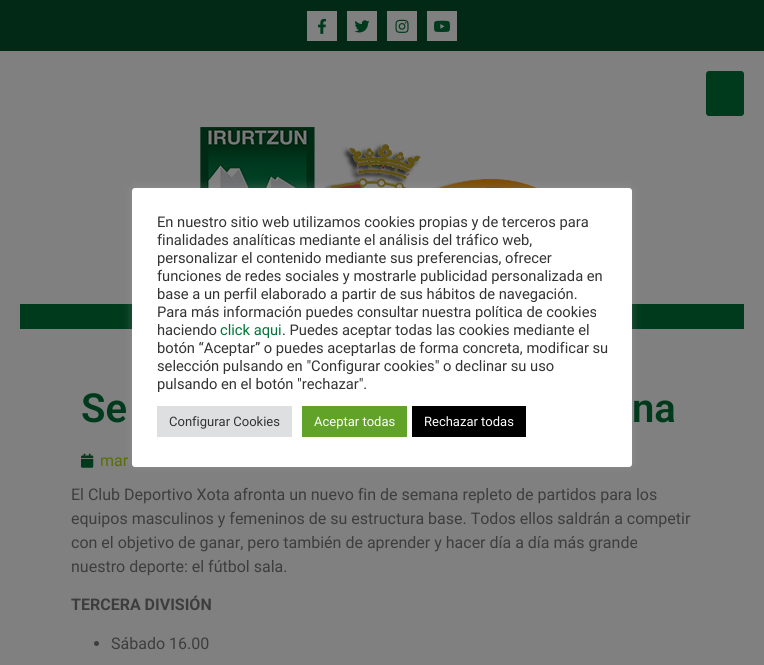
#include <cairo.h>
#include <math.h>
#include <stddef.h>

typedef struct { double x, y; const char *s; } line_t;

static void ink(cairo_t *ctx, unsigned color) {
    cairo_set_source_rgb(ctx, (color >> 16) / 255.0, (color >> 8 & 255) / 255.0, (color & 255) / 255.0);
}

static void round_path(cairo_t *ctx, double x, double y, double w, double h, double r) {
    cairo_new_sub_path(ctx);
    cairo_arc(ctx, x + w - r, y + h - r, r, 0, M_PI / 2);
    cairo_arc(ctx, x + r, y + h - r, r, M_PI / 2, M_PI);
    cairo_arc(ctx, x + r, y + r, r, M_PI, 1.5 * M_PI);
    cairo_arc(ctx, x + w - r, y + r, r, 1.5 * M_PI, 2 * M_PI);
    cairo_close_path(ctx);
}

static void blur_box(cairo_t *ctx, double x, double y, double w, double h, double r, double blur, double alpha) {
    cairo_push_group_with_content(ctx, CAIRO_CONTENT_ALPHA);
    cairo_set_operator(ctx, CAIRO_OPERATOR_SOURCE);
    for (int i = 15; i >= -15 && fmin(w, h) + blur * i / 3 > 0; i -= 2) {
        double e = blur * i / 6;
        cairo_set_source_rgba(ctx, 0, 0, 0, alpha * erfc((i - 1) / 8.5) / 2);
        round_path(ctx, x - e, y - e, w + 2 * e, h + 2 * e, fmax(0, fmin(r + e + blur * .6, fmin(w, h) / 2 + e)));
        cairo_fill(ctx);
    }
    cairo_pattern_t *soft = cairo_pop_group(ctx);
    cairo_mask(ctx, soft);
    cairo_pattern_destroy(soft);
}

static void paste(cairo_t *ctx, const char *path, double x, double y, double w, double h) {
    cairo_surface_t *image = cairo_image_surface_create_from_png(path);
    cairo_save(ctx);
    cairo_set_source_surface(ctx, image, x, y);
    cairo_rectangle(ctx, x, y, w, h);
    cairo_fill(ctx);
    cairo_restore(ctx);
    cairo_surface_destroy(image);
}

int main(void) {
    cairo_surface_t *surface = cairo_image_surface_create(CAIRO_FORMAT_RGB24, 764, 665);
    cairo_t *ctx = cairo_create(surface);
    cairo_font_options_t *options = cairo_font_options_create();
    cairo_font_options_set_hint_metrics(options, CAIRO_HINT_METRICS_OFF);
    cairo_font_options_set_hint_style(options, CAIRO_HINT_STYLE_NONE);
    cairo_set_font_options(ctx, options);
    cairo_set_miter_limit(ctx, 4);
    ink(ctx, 0x808080);
    cairo_paint(ctx);
    ink(ctx, 0x022915);
    cairo_rectangle(ctx, 0, 0, 764, 51);
    cairo_fill(ctx);
    ink(ctx, 0x808080);
    cairo_rectangle(ctx, 307, 11, 30, 30);
    cairo_fill(ctx);
    paste(ctx, "media/1.png", 318, 18, 8, 16);
    cairo_rectangle(ctx, 347, 11, 30, 30);
    cairo_fill(ctx);
    paste(ctx, "media/2.png", 354, 20, 16, 13);
    cairo_rectangle(ctx, 387, 11, 30, 30);
    cairo_fill(ctx);
    paste(ctx, "media/3.png", 395, 19, 14, 14);
    cairo_rectangle(ctx, 427, 11, 30, 30);
    cairo_fill(ctx);
    paste(ctx, "media/4.png", 434, 20, 16, 12);
    ink(ctx, 0x003A1C);
    round_path(ctx, 706, 71, 38, 45, 3);
    cairo_fill(ctx);
    paste(ctx, "media/5.png", 200, 127, 337, 61);
    cairo_rectangle(ctx, 20, 304, 724, 25);
    cairo_fill(ctx);
    ink(ctx, 0xACABAB);
    blur_box(ctx, 132, 187, 500, 279, 3, 5, 0.3);
    ink(ctx, 0xFFFFFF);
    round_path(ctx, 132, 188, 500, 279, 3);
    cairo_fill(ctx);
    cairo_select_font_face(ctx, "Roboto", CAIRO_FONT_SLANT_NORMAL, CAIRO_FONT_WEIGHT_NORMAL);
    cairo_set_font_size(ctx, 14.7);
    ink(ctx, 0x333333);
    {
        static const line_t items[] = {
            {157, 227, "En nuestro sitio web utilizamos cookies propias y de terceros para"},
            {157, 245, "finalidades analíticas mediante el análisis del tráfico web,"},
            {157, 263, "personalizar el contenido mediante sus preferencias, ofrecer"},
            {157, 281, "funciones de redes sociales y mostrarle publicidad personalizada en"},
            {157, 299, "base a un perfil elaborado a partir de sus hábitos de navegación."},
            {157, 317, "Para más información puedes consultar nuestra política de cookies"},
            {157, 335, "haciendo"},
        };
        for (size_t i = 0; i < sizeof items / sizeof *items; i++) {
            cairo_move_to(ctx, items[i].x, items[i].y);
            cairo_show_text(ctx, items[i].s);
        }
    }
    ink(ctx, 0x007437);
    cairo_move_to(ctx, 220, 335);
    cairo_show_text(ctx, "click aqui");
    ink(ctx, 0x333333);
    {
        static const line_t items[] = {
            {282, 335, ". Puedes aceptar todas las cookies mediante el"},
            {157, 353, "botón “Aceptar” o puedes aceptarlas de forma concreta, modificar su"},
            {157, 371, "selección pulsando en \"Configurar cookies\" o declinar su uso"},
            {157, 389, "pulsando en el botón \"rechazar\"."},
        };
        for (size_t i = 0; i < sizeof items / sizeof *items; i++) {
            cairo_move_to(ctx, items[i].x, items[i].y);
            cairo_show_text(ctx, items[i].s);
        }
    }
    ink(ctx, 0xDEDFE0);
    cairo_rectangle(ctx, 157, 406, 135, 31);
    cairo_fill(ctx);
    cairo_set_font_size(ctx, 13);
    ink(ctx, 0x333333);
    cairo_move_to(ctx, 169, 426);
    cairo_show_text(ctx, "Configurar Cookies");
    ink(ctx, 0x61A229);
    cairo_rectangle(ctx, 302, 406, 105, 31);
    cairo_fill(ctx);
    ink(ctx, 0xFFFFFF);
    cairo_move_to(ctx, 314, 426);
    cairo_show_text(ctx, "Aceptar todas");
    ink(ctx, 0x000000);
    cairo_rectangle(ctx, 412, 406, 114, 31);
    cairo_fill(ctx);
    ink(ctx, 0xFFFFFF);
    cairo_move_to(ctx, 424, 426);
    cairo_show_text(ctx, "Rechazar todas");
    cairo_select_font_face(ctx, "Roboto SemiBold", CAIRO_FONT_SLANT_NORMAL, CAIRO_FONT_WEIGHT_NORMAL);
    cairo_set_font_size(ctx, 40);
    ink(ctx, 0x003A1C);
    cairo_move_to(ctx, 81, 422);
    cairo_show_text(ctx, "Se");
    cairo_move_to(ctx, 632, 422);
    cairo_show_text(ctx, "na");
    paste(ctx, "media/6.png", 81, 453, 13, 15);
    cairo_select_font_face(ctx, "Roboto", CAIRO_FONT_SLANT_NORMAL, CAIRO_FONT_WEIGHT_NORMAL);
    cairo_set_font_size(ctx, 16);
    ink(ctx, 0x586E01);
    cairo_move_to(ctx, 100, 466);
    cairo_show_text(ctx, "mar");
    ink(ctx, 0x3D3D3D);
    {
        static const line_t items[] = {
            {71, 500, "El Club Deportivo Xota afronta un nuevo fin de semana repleto de partidos para los"},
            {71, 524, "equipos masculinos y femeninos de su estructura base. Todos ellos saldrán a competir"},
            {71, 548, "con el objetivo de ganar, pero también de aprender y hacer día a día más grande"},
            {71, 572, "nuestro deporte: el fútbol sala."},
        };
        for (size_t i = 0; i < sizeof items / sizeof *items; i++) {
            cairo_move_to(ctx, items[i].x, items[i].y);
            cairo_show_text(ctx, items[i].s);
        }
    }
    cairo_select_font_face(ctx, "Roboto", CAIRO_FONT_SLANT_NORMAL, CAIRO_FONT_WEIGHT_BOLD);
    cairo_move_to(ctx, 71, 610);
    cairo_show_text(ctx, "TERCERA DIVISIÓN");
    cairo_new_path(ctx);
    cairo_arc(ctx, 96.5, 643.5, 2.5, 0, 2 * M_PI);
    cairo_fill(ctx);
    cairo_select_font_face(ctx, "Roboto", CAIRO_FONT_SLANT_NORMAL, CAIRO_FONT_WEIGHT_NORMAL);
    cairo_move_to(ctx, 111, 649);
    cairo_show_text(ctx, "Sábado 16.00");
    cairo_surface_write_to_png(surface, "image.png");
    cairo_font_options_destroy(options);
    cairo_destroy(ctx);
    cairo_surface_destroy(surface);
    return 0;
}
